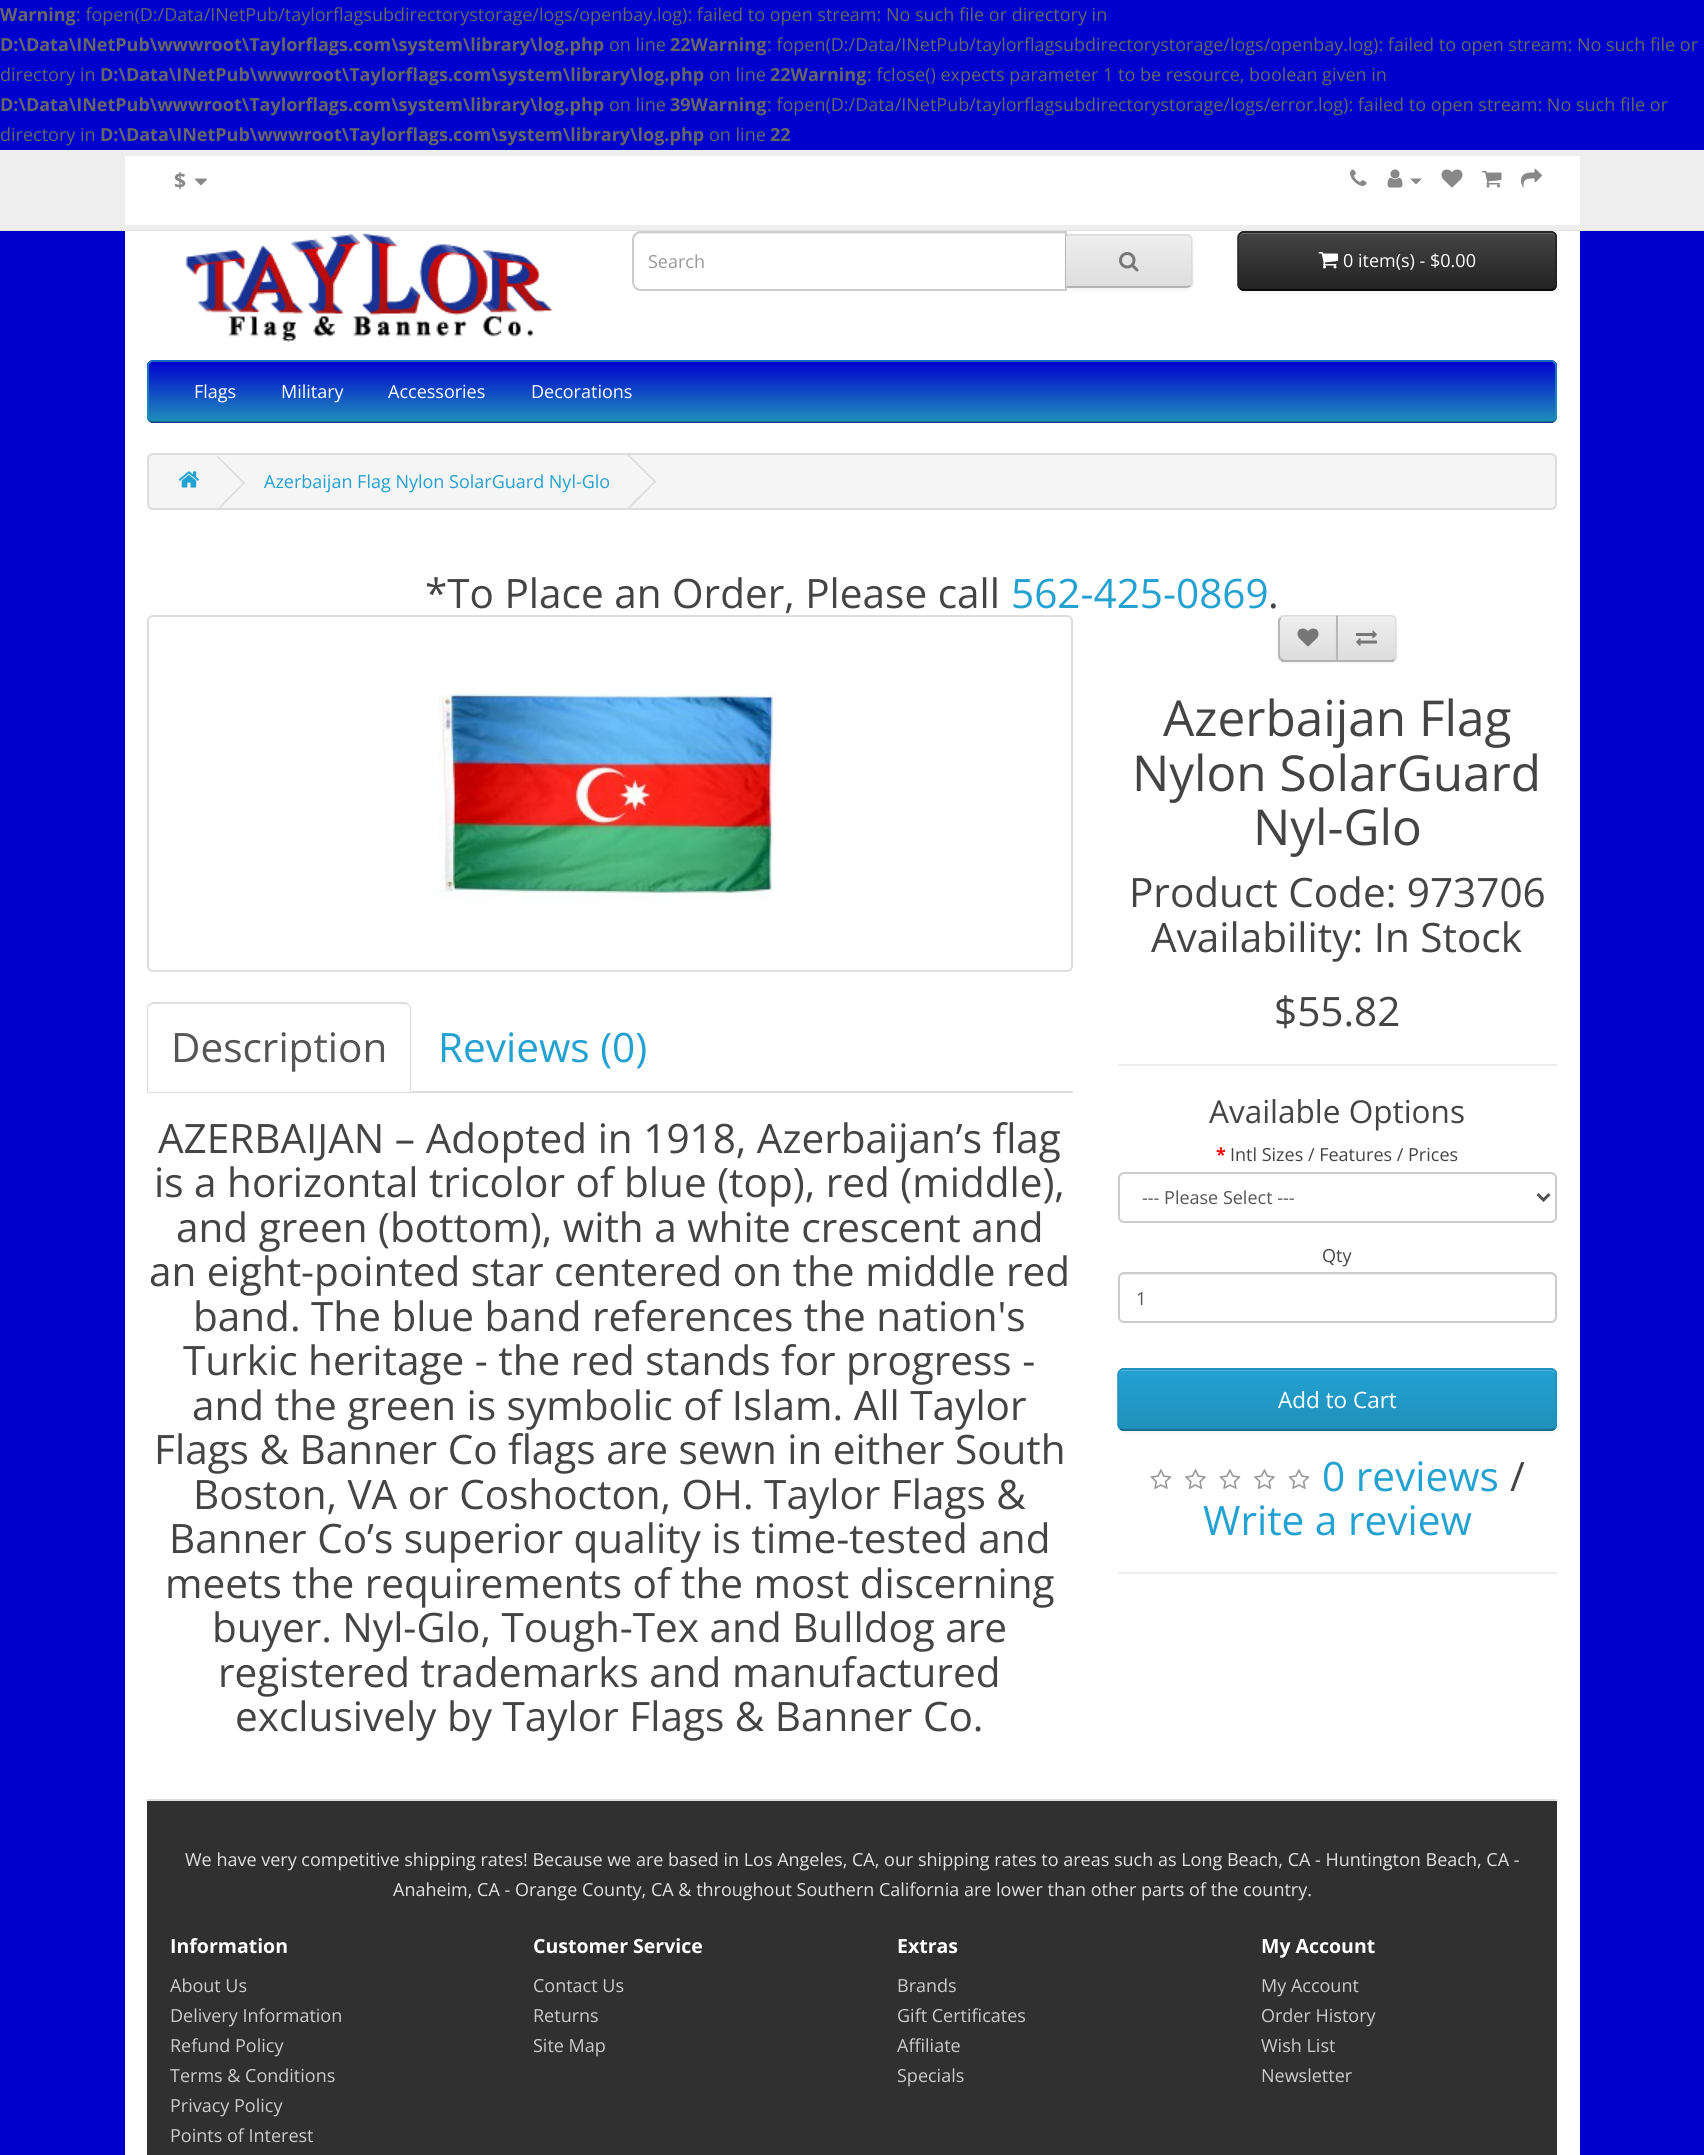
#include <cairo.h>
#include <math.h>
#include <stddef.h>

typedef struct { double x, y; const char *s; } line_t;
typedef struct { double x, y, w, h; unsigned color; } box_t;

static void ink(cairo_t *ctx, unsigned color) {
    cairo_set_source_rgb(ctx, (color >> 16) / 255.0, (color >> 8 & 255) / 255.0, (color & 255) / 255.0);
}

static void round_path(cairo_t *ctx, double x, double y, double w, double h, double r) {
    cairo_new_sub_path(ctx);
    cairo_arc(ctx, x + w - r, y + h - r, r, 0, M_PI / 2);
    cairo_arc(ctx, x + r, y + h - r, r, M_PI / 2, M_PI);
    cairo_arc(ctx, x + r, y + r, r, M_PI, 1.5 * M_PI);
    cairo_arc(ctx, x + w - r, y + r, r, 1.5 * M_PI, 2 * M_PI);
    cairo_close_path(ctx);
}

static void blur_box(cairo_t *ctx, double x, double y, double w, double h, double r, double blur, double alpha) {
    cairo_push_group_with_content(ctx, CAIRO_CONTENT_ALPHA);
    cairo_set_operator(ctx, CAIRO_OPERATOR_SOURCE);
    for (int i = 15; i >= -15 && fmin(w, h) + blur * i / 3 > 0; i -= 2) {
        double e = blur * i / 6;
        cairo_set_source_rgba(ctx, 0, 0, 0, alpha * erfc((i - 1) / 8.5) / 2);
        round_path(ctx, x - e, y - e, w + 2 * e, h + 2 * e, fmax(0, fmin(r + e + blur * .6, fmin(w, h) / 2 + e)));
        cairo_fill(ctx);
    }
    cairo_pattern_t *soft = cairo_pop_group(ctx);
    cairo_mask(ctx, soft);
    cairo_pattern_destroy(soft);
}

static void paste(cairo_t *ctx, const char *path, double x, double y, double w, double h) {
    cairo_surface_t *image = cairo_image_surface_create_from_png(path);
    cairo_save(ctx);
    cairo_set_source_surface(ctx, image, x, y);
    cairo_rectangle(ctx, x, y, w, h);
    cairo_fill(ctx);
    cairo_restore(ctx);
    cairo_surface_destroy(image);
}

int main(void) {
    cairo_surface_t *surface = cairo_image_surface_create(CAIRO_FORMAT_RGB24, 1704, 2155);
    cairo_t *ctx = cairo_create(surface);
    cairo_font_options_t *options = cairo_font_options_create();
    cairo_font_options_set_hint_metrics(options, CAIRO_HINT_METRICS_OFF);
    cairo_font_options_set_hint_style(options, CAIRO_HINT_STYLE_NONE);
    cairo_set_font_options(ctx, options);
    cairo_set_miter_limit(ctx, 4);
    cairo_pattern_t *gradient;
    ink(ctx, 0x0000CE);
    cairo_paint(ctx);
    cairo_select_font_face(ctx, "Open Sans", CAIRO_FONT_SLANT_NORMAL, CAIRO_FONT_WEIGHT_BOLD);
    cairo_set_font_size(ctx, 18);
    ink(ctx, 0x666666);
    cairo_move_to(ctx, 0, 21);
    cairo_show_text(ctx, "Warning");
    cairo_select_font_face(ctx, "Open Sans", CAIRO_FONT_SLANT_NORMAL, CAIRO_FONT_WEIGHT_NORMAL);
    cairo_move_to(ctx, 76, 21);
    cairo_show_text(ctx, ": fopen(D:/Data/INetPub/taylorflagsubdirectorystorage/logs/openbay.log): failed to open stream: No such file or directory in");
    cairo_select_font_face(ctx, "Open Sans", CAIRO_FONT_SLANT_NORMAL, CAIRO_FONT_WEIGHT_BOLD);
    cairo_move_to(ctx, 0, 51);
    cairo_show_text(ctx, "D:\\Data\\INetPub\\wwwroot\\Taylorflags.com\\system\\library\\log.php");
    cairo_select_font_face(ctx, "Open Sans", CAIRO_FONT_SLANT_NORMAL, CAIRO_FONT_WEIGHT_NORMAL);
    cairo_move_to(ctx, 609, 51);
    cairo_show_text(ctx, "on line");
    cairo_select_font_face(ctx, "Open Sans", CAIRO_FONT_SLANT_NORMAL, CAIRO_FONT_WEIGHT_BOLD);
    cairo_move_to(ctx, 670, 51);
    cairo_show_text(ctx, "22Warning");
    cairo_select_font_face(ctx, "Open Sans", CAIRO_FONT_SLANT_NORMAL, CAIRO_FONT_WEIGHT_NORMAL);
    cairo_move_to(ctx, 767, 51);
    cairo_show_text(ctx, ": fopen(D:/Data/INetPub/taylorflagsubdirectorystorage/logs/openbay.log): failed to open stream: No such file or");
    cairo_move_to(ctx, 0, 81);
    cairo_show_text(ctx, "directory in");
    cairo_select_font_face(ctx, "Open Sans", CAIRO_FONT_SLANT_NORMAL, CAIRO_FONT_WEIGHT_BOLD);
    cairo_move_to(ctx, 100, 81);
    cairo_show_text(ctx, "D:\\Data\\INetPub\\wwwroot\\Taylorflags.com\\system\\library\\log.php");
    cairo_select_font_face(ctx, "Open Sans", CAIRO_FONT_SLANT_NORMAL, CAIRO_FONT_WEIGHT_NORMAL);
    cairo_move_to(ctx, 709, 81);
    cairo_show_text(ctx, "on line");
    cairo_select_font_face(ctx, "Open Sans", CAIRO_FONT_SLANT_NORMAL, CAIRO_FONT_WEIGHT_BOLD);
    cairo_move_to(ctx, 770, 81);
    cairo_show_text(ctx, "22Warning");
    cairo_select_font_face(ctx, "Open Sans", CAIRO_FONT_SLANT_NORMAL, CAIRO_FONT_WEIGHT_NORMAL);
    cairo_move_to(ctx, 867, 81);
    cairo_show_text(ctx, ": fclose() expects parameter 1 to be resource, boolean given in");
    cairo_select_font_face(ctx, "Open Sans", CAIRO_FONT_SLANT_NORMAL, CAIRO_FONT_WEIGHT_BOLD);
    cairo_move_to(ctx, 0, 111);
    cairo_show_text(ctx, "D:\\Data\\INetPub\\wwwroot\\Taylorflags.com\\system\\library\\log.php");
    cairo_select_font_face(ctx, "Open Sans", CAIRO_FONT_SLANT_NORMAL, CAIRO_FONT_WEIGHT_NORMAL);
    cairo_move_to(ctx, 609, 111);
    cairo_show_text(ctx, "on line");
    cairo_select_font_face(ctx, "Open Sans", CAIRO_FONT_SLANT_NORMAL, CAIRO_FONT_WEIGHT_BOLD);
    cairo_move_to(ctx, 670, 111);
    cairo_show_text(ctx, "39Warning");
    cairo_select_font_face(ctx, "Open Sans", CAIRO_FONT_SLANT_NORMAL, CAIRO_FONT_WEIGHT_NORMAL);
    cairo_move_to(ctx, 767, 111);
    cairo_show_text(ctx, ": fopen(D:/Data/INetPub/taylorflagsubdirectorystorage/logs/error.log): failed to open stream: No such file or");
    cairo_move_to(ctx, 0, 141);
    cairo_show_text(ctx, "directory in");
    cairo_select_font_face(ctx, "Open Sans", CAIRO_FONT_SLANT_NORMAL, CAIRO_FONT_WEIGHT_BOLD);
    cairo_move_to(ctx, 100, 141);
    cairo_show_text(ctx, "D:\\Data\\INetPub\\wwwroot\\Taylorflags.com\\system\\library\\log.php");
    cairo_select_font_face(ctx, "Open Sans", CAIRO_FONT_SLANT_NORMAL, CAIRO_FONT_WEIGHT_NORMAL);
    cairo_move_to(ctx, 709, 141);
    cairo_show_text(ctx, "on line");
    cairo_select_font_face(ctx, "Open Sans", CAIRO_FONT_SLANT_NORMAL, CAIRO_FONT_WEIGHT_BOLD);
    cairo_move_to(ctx, 770, 141);
    cairo_show_text(ctx, "22");
    {
        static const box_t items[] = {
            {0, 150, 1704, 80, 0xEEEEEE},
            {0, 230, 1704, 1, 0xE2E2E2},
            {125, 156, 1455, 69, 0xFFFFFF},
        };
        for (size_t i = 0; i < sizeof items / sizeof *items; i++) {
            ink(ctx, items[i].color);
            cairo_rectangle(ctx, items[i].x, items[i].y, items[i].w, items[i].h);
            cairo_fill(ctx);
        }
    }
    cairo_set_font_size(ctx, 21);
    ink(ctx, 0x888888);
    cairo_move_to(ctx, 174, 188);
    cairo_show_text(ctx, "$");
    paste(ctx, "media/1.png", 195, 178, 12, 8);
    paste(ctx, "media/2.png", 1350, 169, 17, 17);
    paste(ctx, "media/3.png", 1387, 169, 16, 19);
    cairo_new_path(ctx);
    cairo_move_to(ctx, 1410, 178.5);
    cairo_line_to(ctx, 1422, 178.5);
    cairo_line_to(ctx, 1416, 184.5);
    cairo_close_path(ctx);
    cairo_fill(ctx);
    paste(ctx, "media/4.png", 1441, 169, 22, 19);
    paste(ctx, "media/5.png", 1482, 171, 20, 17);
    paste(ctx, "media/6.png", 1521, 168, 21, 20);
    ink(ctx, 0xFFFFFF);
    cairo_rectangle(ctx, 125, 231, 1455, 1924);
    cairo_fill(ctx);
    paste(ctx, "media/7.png", 185, 233, 368, 110);
    ink(ctx, 0xECECEC);
    cairo_new_path(ctx);
    cairo_move_to(ctx, 640, 234);
    cairo_line_to(ctx, 1065, 234);
    cairo_line_to(ctx, 1065, 233);
    cairo_line_to(ctx, 641, 233);
    cairo_curve_to(ctx, 636, 233, 633, 237, 633, 242);
    cairo_curve_to(ctx, 633, 237, 636, 234, 640, 234);
    cairo_close_path(ctx);
    cairo_fill(ctx);
    cairo_new_path(ctx);
    cairo_move_to(ctx, 641, 232);
    cairo_line_to(ctx, 1066, 232);
    cairo_line_to(ctx, 1066, 290);
    cairo_line_to(ctx, 641, 290);
    cairo_curve_to(ctx, 636.5, 290, 633, 286.5, 633, 282);
    cairo_line_to(ctx, 633, 240);
    cairo_curve_to(ctx, 633, 235.5, 636.5, 232, 641, 232);
    cairo_close_path(ctx);
    ink(ctx, 0xCCCCCC);
    cairo_stroke(ctx);
    cairo_select_font_face(ctx, "Open Sans", CAIRO_FONT_SLANT_NORMAL, CAIRO_FONT_WEIGHT_NORMAL);
    cairo_set_font_size(ctx, 18);
    ink(ctx, 0x999999);
    cairo_move_to(ctx, 648, 268);
    cairo_show_text(ctx, "Search");
    ink(ctx, 0x000000);
    blur_box(ctx, 1065, 236, 128, 54, 6, 1.5, 0.05);
    ink(ctx, 0xE7E7E7);
    cairo_new_path(ctx);
    cairo_move_to(ctx, 1065, 234);
    cairo_line_to(ctx, 1187, 234);
    cairo_curve_to(ctx, 1190.5, 234, 1193, 236.5, 1193, 240);
    cairo_line_to(ctx, 1193, 282);
    cairo_curve_to(ctx, 1193, 285.5, 1190.5, 288, 1187, 288);
    cairo_line_to(ctx, 1065, 288);
    cairo_close_path(ctx);
    cairo_fill(ctx);
    cairo_save(ctx);
    cairo_new_path(ctx);
    cairo_move_to(ctx, 1065, 234);
    cairo_line_to(ctx, 1187, 234);
    cairo_curve_to(ctx, 1190.5, 234, 1193, 236.5, 1193, 240);
    cairo_line_to(ctx, 1193, 282);
    cairo_curve_to(ctx, 1193, 285.5, 1190.5, 288, 1187, 288);
    cairo_line_to(ctx, 1065, 288);
    cairo_close_path(ctx);
    cairo_clip(ctx);
    gradient = cairo_pattern_create_linear(1129, 236, 1129, 287);
    cairo_pattern_add_color_stop_rgba(gradient, 0, 0.933, 0.933, 0.933, 1);
    cairo_pattern_add_color_stop_rgba(gradient, 1, 0.867, 0.867, 0.867, 1);
    cairo_set_source(ctx, gradient);
    cairo_pattern_destroy(gradient);
    cairo_rectangle(ctx, 1066, 236, 127, 51);
    cairo_fill(ctx);
    cairo_restore(ctx);
    ink(ctx, 0xF1F1F1);
    cairo_new_path(ctx);
    cairo_move_to(ctx, 1067, 236);
    cairo_line_to(ctx, 1067, 237);
    cairo_line_to(ctx, 1186, 237);
    cairo_curve_to(ctx, 1189, 237, 1191, 239, 1191, 242);
    cairo_curve_to(ctx, 1191, 239, 1189, 236, 1186, 236);
    cairo_close_path(ctx);
    cairo_fill(ctx);
    ink(ctx, 0xDDDDDD);
    cairo_new_path(ctx);
    cairo_move_to(ctx, 1065, 234);
    cairo_line_to(ctx, 1067, 236);
    cairo_line_to(ctx, 1186, 236);
    cairo_curve_to(ctx, 1187, 236, 1189, 236, 1189, 237);
    cairo_line_to(ctx, 1191, 236);
    cairo_curve_to(ctx, 1190, 235, 1188, 234, 1186, 234);
    cairo_close_path(ctx);
    cairo_fill(ctx);
    cairo_new_path(ctx);
    cairo_move_to(ctx, 1191, 236);
    cairo_curve_to(ctx, 1192, 237, 1192, 239, 1192, 240);
    cairo_line_to(ctx, 1192, 282);
    cairo_curve_to(ctx, 1192, 283, 1192, 285, 1191, 286);
    cairo_line_to(ctx, 1189, 285);
    cairo_curve_to(ctx, 1190, 284, 1191, 283, 1191, 282);
    cairo_line_to(ctx, 1191, 240);
    cairo_curve_to(ctx, 1191, 239, 1190, 238, 1189, 237);
    cairo_close_path(ctx);
    cairo_fill(ctx);
    ink(ctx, 0xB3B3B3);
    cairo_new_path(ctx);
    cairo_move_to(ctx, 1186, 288);
    cairo_curve_to(ctx, 1188, 288, 1190, 287, 1191, 286);
    cairo_line_to(ctx, 1189, 285);
    cairo_curve_to(ctx, 1189, 286, 1187, 286, 1186, 286);
    cairo_line_to(ctx, 1067, 286);
    cairo_line_to(ctx, 1065, 288);
    cairo_close_path(ctx);
    cairo_fill(ctx);
    ink(ctx, 0xB7B7B7);
    cairo_new_path(ctx);
    cairo_move_to(ctx, 1065, 234);
    cairo_line_to(ctx, 1065, 288);
    cairo_line_to(ctx, 1067, 286);
    cairo_line_to(ctx, 1066, 286);
    cairo_line_to(ctx, 1066, 236);
    cairo_line_to(ctx, 1067, 236);
    cairo_close_path(ctx);
    cairo_fill(ctx);
    paste(ctx, "media/8.png", 1119, 252, 20, 20);
    ink(ctx, 0x000000);
    blur_box(ctx, 1238, 233, 319, 60, 6, 1.5, 0.05);
    ink(ctx, 0x363636);
    round_path(ctx, 1238, 231, 319, 60, 6);
    cairo_fill(ctx);
    cairo_save(ctx);
    round_path(ctx, 1238, 231, 319, 60, 6);
    cairo_clip(ctx);
    gradient = cairo_pattern_create_linear(1397, 233, 1397, 290);
    cairo_pattern_add_color_stop_rgba(gradient, 0, 0.267, 0.267, 0.267, 1);
    cairo_pattern_add_color_stop_rgba(gradient, 1, 0.133, 0.133, 0.133, 1);
    cairo_set_source(ctx, gradient);
    cairo_pattern_destroy(gradient);
    cairo_rectangle(ctx, 1238, 233, 319, 57);
    cairo_fill(ctx);
    cairo_restore(ctx);
    ink(ctx, 0x696969);
    cairo_new_path(ctx);
    cairo_move_to(ctx, 1244, 234);
    cairo_line_to(ctx, 1551, 234);
    cairo_curve_to(ctx, 1553, 234, 1556, 236, 1556, 238);
    cairo_curve_to(ctx, 1556, 235, 1554, 233, 1551, 233);
    cairo_line_to(ctx, 1244, 233);
    cairo_curve_to(ctx, 1241, 233, 1239, 235, 1239, 238);
    cairo_curve_to(ctx, 1239, 236, 1241, 234, 1244, 234);
    cairo_close_path(ctx);
    cairo_fill(ctx);
    cairo_new_path(ctx);
    cairo_move_to(ctx, 1554.5, 288.5);
    cairo_curve_to(ctx, 1553.5, 289.5, 1552.5, 290, 1551, 290);
    cairo_line_to(ctx, 1243.5, 290);
    cairo_curve_to(ctx, 1242, 290, 1241, 289.5, 1240, 288.5);
    ink(ctx, 0x000000);
    cairo_set_line_width(ctx, 1.5);
    cairo_stroke(ctx);
    cairo_new_path(ctx);
    cairo_move_to(ctx, 1240, 288.5);
    cairo_curve_to(ctx, 1239, 287.5, 1238, 286.5, 1238, 285);
    cairo_line_to(ctx, 1238, 237);
    cairo_curve_to(ctx, 1238, 235.5, 1239, 234.5, 1240, 233.5);
    cairo_curve_to(ctx, 1241, 232.5, 1242, 232, 1243.5, 232);
    cairo_line_to(ctx, 1551, 232);
    cairo_curve_to(ctx, 1552.5, 232, 1553.5, 232.5, 1554.5, 233.5);
    cairo_curve_to(ctx, 1555.5, 234.5, 1556, 235.5, 1556, 237);
    cairo_line_to(ctx, 1556, 285);
    cairo_curve_to(ctx, 1556, 286.5, 1555.5, 287.5, 1554.5, 288.5);
    ink(ctx, 0x222222);
    cairo_stroke(ctx);
    paste(ctx, "media/9.png", 1318, 252, 20, 17);
    ink(ctx, 0xFFFFFF);
    cairo_move_to(ctx, 1343, 267);
    cairo_show_text(ctx, "0 item(s) - $0.00");
    ink(ctx, 0x0000CE);
    round_path(ctx, 147, 360, 1410, 63, 6);
    cairo_fill(ctx);
    cairo_save(ctx);
    round_path(ctx, 147, 360, 1410, 63, 6);
    cairo_clip(ctx);
    gradient = cairo_pattern_create_linear(852, 361, 852, 422);
    cairo_pattern_add_color_stop_rgba(gradient, 0, 0, 0, 0.808, 1);
    cairo_pattern_add_color_stop_rgba(gradient, 1, 0.122, 0.565, 0.733, 1);
    cairo_set_source(ctx, gradient);
    cairo_pattern_destroy(gradient);
    cairo_rectangle(ctx, 147, 362, 1410, 60);
    cairo_fill(ctx);
    cairo_restore(ctx);
    cairo_new_path(ctx);
    cairo_move_to(ctx, 1554.5, 420.5);
    cairo_curve_to(ctx, 1553.5, 421.5, 1552.5, 422, 1551, 422);
    cairo_line_to(ctx, 153, 422);
    cairo_curve_to(ctx, 151.5, 422, 150.5, 421.5, 149.5, 420.5);
    ink(ctx, 0x145E7A);
    cairo_stroke(ctx);
    cairo_new_path(ctx);
    cairo_move_to(ctx, 149.5, 420.5);
    cairo_curve_to(ctx, 148.5, 419.5, 148, 418.5, 148, 417);
    cairo_line_to(ctx, 148, 366);
    cairo_curve_to(ctx, 148, 364.5, 148.5, 363.5, 149.5, 362.5);
    cairo_curve_to(ctx, 150.5, 361.5, 151.5, 361, 153, 361);
    cairo_line_to(ctx, 1551, 361);
    cairo_curve_to(ctx, 1552.5, 361, 1553.5, 361.5, 1554.5, 362.5);
    cairo_curve_to(ctx, 1555.5, 363.5, 1556, 364.5, 1556, 366);
    cairo_line_to(ctx, 1556, 417);
    cairo_curve_to(ctx, 1556, 418.5, 1555.5, 419.5, 1554.5, 420.5);
    ink(ctx, 0x1F90BB);
    cairo_stroke(ctx);
    ink(ctx, 0xFFFFFF);
    {
        static const line_t items[] = {
            {194, 398, "Flags"},
            {281, 398, "Military"},
            {388, 398, "Accessories"},
            {531, 398, "Decorations"},
        };
        for (size_t i = 0; i < sizeof items / sizeof *items; i++) {
            cairo_move_to(ctx, items[i].x, items[i].y);
            cairo_show_text(ctx, items[i].s);
        }
    }
    ink(ctx, 0xF5F5F5);
    round_path(ctx, 148, 454, 1408, 55, 5);
    cairo_fill_preserve(ctx);
    ink(ctx, 0xDDDDDD);
    cairo_set_line_width(ctx, 2);
    cairo_stroke(ctx);
    paste(ctx, "media/10.png", 178, 471, 21, 17);
    cairo_new_path(ctx);
    cairo_move_to(ctx, 216.5, 456.5);
    cairo_line_to(ctx, 217.5, 455.5);
    cairo_line_to(ctx, 245, 483);
    cairo_line_to(ctx, 244, 484.5);
    cairo_close_path(ctx);
    cairo_fill(ctx);
    cairo_new_path(ctx);
    cairo_move_to(ctx, 216.5, 509.5);
    cairo_line_to(ctx, 244, 482);
    cairo_line_to(ctx, 245, 483);
    cairo_line_to(ctx, 217.5, 511);
    cairo_close_path(ctx);
    cairo_fill(ctx);
    ink(ctx, 0x23A1D1);
    cairo_move_to(ctx, 264, 488);
    cairo_show_text(ctx, "Azerbaijan Flag Nylon SolarGuard Nyl-Glo");
    ink(ctx, 0xDDDDDD);
    cairo_new_path(ctx);
    cairo_move_to(ctx, 627, 455);
    cairo_line_to(ctx, 628.5, 454);
    cairo_line_to(ctx, 656, 481.5);
    cairo_line_to(ctx, 655, 483);
    cairo_close_path(ctx);
    cairo_fill(ctx);
    cairo_new_path(ctx);
    cairo_move_to(ctx, 627, 508);
    cairo_line_to(ctx, 655, 480.5);
    cairo_line_to(ctx, 656, 481.5);
    cairo_line_to(ctx, 628.5, 509.5);
    cairo_close_path(ctx);
    cairo_fill(ctx);
    cairo_set_font_size(ctx, 40.5);
    ink(ctx, 0x444444);
    cairo_move_to(ctx, 425, 608);
    cairo_show_text(ctx, "*To Place an Order, Please call");
    ink(ctx, 0x23A1D1);
    cairo_move_to(ctx, 1011, 608);
    cairo_show_text(ctx, "562-425-0869");
    ink(ctx, 0x444444);
    cairo_move_to(ctx, 1268, 608);
    cairo_show_text(ctx, ".");
    round_path(ctx, 148, 616, 924, 355, 5);
    ink(ctx, 0xDDDDDD);
    cairo_stroke(ctx);
    paste(ctx, "media/11.png", 438, 693, 337, 208);
    cairo_rectangle(ctx, 147, 1091, 926, 2);
    cairo_fill(ctx);
    ink(ctx, 0xFFFFFF);
    cairo_new_path(ctx);
    cairo_move_to(ctx, 153, 1002);
    cairo_line_to(ctx, 405, 1002);
    cairo_curve_to(ctx, 408.5, 1002, 411, 1004.5, 411, 1008);
    cairo_line_to(ctx, 411, 1092);
    cairo_line_to(ctx, 147, 1092);
    cairo_line_to(ctx, 147, 1008);
    cairo_curve_to(ctx, 147, 1004.5, 149.5, 1002, 153, 1002);
    cairo_close_path(ctx);
    cairo_fill(ctx);
    ink(ctx, 0xDDDDDD);
    cairo_new_path(ctx);
    cairo_move_to(ctx, 153, 1002);
    cairo_curve_to(ctx, 152, 1002, 150, 1003, 149, 1004);
    cairo_line_to(ctx, 150, 1005);
    cairo_line_to(ctx, 153, 1004);
    cairo_line_to(ctx, 405, 1004);
    cairo_line_to(ctx, 408, 1005);
    cairo_line_to(ctx, 409, 1004);
    cairo_curve_to(ctx, 408, 1003, 406, 1002, 405, 1002);
    cairo_close_path(ctx);
    cairo_fill(ctx);
    cairo_new_path(ctx);
    cairo_move_to(ctx, 411, 1092);
    cairo_line_to(ctx, 411, 1007);
    cairo_line_to(ctx, 409, 1004);
    cairo_line_to(ctx, 408, 1005);
    cairo_line_to(ctx, 410, 1008);
    cairo_line_to(ctx, 410, 1090);
    cairo_line_to(ctx, 409, 1090);
    cairo_close_path(ctx);
    cairo_fill(ctx);
    cairo_new_path(ctx);
    cairo_move_to(ctx, 147, 1092);
    cairo_line_to(ctx, 149, 1090);
    cairo_line_to(ctx, 148, 1090);
    cairo_line_to(ctx, 148, 1008);
    cairo_line_to(ctx, 150, 1005);
    cairo_line_to(ctx, 149, 1004);
    cairo_curve_to(ctx, 148, 1005, 147, 1006, 147, 1008);
    cairo_close_path(ctx);
    cairo_fill(ctx);
    ink(ctx, 0x555555);
    cairo_move_to(ctx, 171, 1062);
    cairo_show_text(ctx, "Description");
    ink(ctx, 0x23A1D1);
    cairo_move_to(ctx, 438, 1062);
    cairo_show_text(ctx, "Reviews (0)");
    ink(ctx, 0x444444);
    {
        static const line_t items[] = {
            {158, 1153, "AZERBAIJAN – Adopted in 1918, Azerbaijan’s flag"},
            {154, 1197, "is a horizontal tricolor of blue (top), red (middle),"},
            {176, 1242, "and green (bottom), with a white crescent and"},
            {149, 1286, "an eight-pointed star centered on the middle red"},
            {193, 1331, "band. The blue band references the nation's"},
            {183, 1375, "Turkic heritage - the red stands for progress -"},
            {192, 1420, "and the green is symbolic of Islam. All Taylor"},
            {154, 1464, "Flags & Banner Co flags are sewn in either South"},
            {193, 1509, "Boston, VA or Coshocton, OH. Taylor Flags &"},
            {169, 1553, "Banner Co’s superior quality is time-tested and"},
            {165, 1598, "meets the requirements of the most discerning"},
            {212, 1642, "buyer. Nyl-Glo, Tough-Tex and Bulldog are"},
            {218, 1687, "registered trademarks and manufactured"},
            {235, 1731, "exclusively by Taylor Flags & Banner Co."},
        };
        for (size_t i = 0; i < sizeof items / sizeof *items; i++) {
            cairo_move_to(ctx, items[i].x, items[i].y);
            cairo_show_text(ctx, items[i].s);
        }
    }
    ink(ctx, 0x000000);
    blur_box(ctx, 1278, 617, 60, 46, 6, 1.5, 0.05);
    ink(ctx, 0xE7E7E7);
    cairo_new_path(ctx);
    cairo_move_to(ctx, 1284, 615);
    cairo_line_to(ctx, 1338, 615);
    cairo_line_to(ctx, 1338, 662);
    cairo_line_to(ctx, 1284, 662);
    cairo_curve_to(ctx, 1280.5, 662, 1278, 659.5, 1278, 656);
    cairo_line_to(ctx, 1278, 621);
    cairo_curve_to(ctx, 1278, 617.5, 1280.5, 615, 1284, 615);
    cairo_close_path(ctx);
    cairo_fill(ctx);
    cairo_save(ctx);
    cairo_new_path(ctx);
    cairo_move_to(ctx, 1284, 615);
    cairo_line_to(ctx, 1338, 615);
    cairo_line_to(ctx, 1338, 662);
    cairo_line_to(ctx, 1284, 662);
    cairo_curve_to(ctx, 1280.5, 662, 1278, 659.5, 1278, 656);
    cairo_line_to(ctx, 1278, 621);
    cairo_curve_to(ctx, 1278, 617.5, 1280.5, 615, 1284, 615);
    cairo_close_path(ctx);
    cairo_clip(ctx);
    gradient = cairo_pattern_create_linear(1308, 617, 1308, 660);
    cairo_pattern_add_color_stop_rgba(gradient, 0, 0.933, 0.933, 0.933, 1);
    cairo_pattern_add_color_stop_rgba(gradient, 1, 0.867, 0.867, 0.867, 1);
    cairo_set_source(ctx, gradient);
    cairo_pattern_destroy(gradient);
    cairo_rectangle(ctx, 1278, 617, 58, 43);
    cairo_fill(ctx);
    cairo_restore(ctx);
    cairo_set_source_rgba(ctx, 1, 1, 1, 0.2);
    cairo_new_path(ctx);
    cairo_move_to(ctx, 1284, 618);
    cairo_line_to(ctx, 1336, 618);
    cairo_line_to(ctx, 1336, 660);
    cairo_line_to(ctx, 1337, 660);
    cairo_line_to(ctx, 1337, 617);
    cairo_line_to(ctx, 1285, 617);
    cairo_curve_to(ctx, 1282, 617, 1280, 619, 1280, 622);
    cairo_curve_to(ctx, 1280, 620, 1282, 618, 1284, 618);
    cairo_close_path(ctx);
    cairo_fill(ctx);
    ink(ctx, 0xDDDDDD);
    cairo_new_path(ctx);
    cairo_move_to(ctx, 1284, 615);
    cairo_curve_to(ctx, 1282, 615, 1281, 616, 1280, 617);
    cairo_line_to(ctx, 1281, 618);
    cairo_line_to(ctx, 1284, 616);
    cairo_line_to(ctx, 1336, 616);
    cairo_line_to(ctx, 1336, 617);
    cairo_line_to(ctx, 1338, 615);
    cairo_close_path(ctx);
    cairo_fill(ctx);
    ink(ctx, 0xB3B3B3);
    cairo_new_path(ctx);
    cairo_move_to(ctx, 1338, 662);
    cairo_line_to(ctx, 1282, 662);
    cairo_line_to(ctx, 1280, 660);
    cairo_line_to(ctx, 1281, 658);
    cairo_line_to(ctx, 1284, 660);
    cairo_line_to(ctx, 1336, 660);
    cairo_close_path(ctx);
    cairo_fill(ctx);
    ink(ctx, 0xB7B7B7);
    cairo_new_path(ctx);
    cairo_move_to(ctx, 1278, 621);
    cairo_line_to(ctx, 1278, 656);
    cairo_curve_to(ctx, 1278, 657, 1279, 659, 1280, 660);
    cairo_line_to(ctx, 1281, 658);
    cairo_line_to(ctx, 1280, 656);
    cairo_line_to(ctx, 1280, 621);
    cairo_line_to(ctx, 1281, 618);
    cairo_line_to(ctx, 1280, 617);
    cairo_curve_to(ctx, 1279, 618, 1278, 620, 1278, 621);
    cairo_close_path(ctx);
    cairo_fill(ctx);
    paste(ctx, "media/12.png", 1297, 628, 22, 19);
    ink(ctx, 0x000000);
    blur_box(ctx, 1337, 617, 60, 46, 6, 1.5, 0.05);
    ink(ctx, 0xE7E7E7);
    cairo_new_path(ctx);
    cairo_move_to(ctx, 1337, 615);
    cairo_line_to(ctx, 1391, 615);
    cairo_curve_to(ctx, 1394.5, 615, 1397, 617.5, 1397, 621);
    cairo_line_to(ctx, 1397, 656);
    cairo_curve_to(ctx, 1397, 659.5, 1394.5, 662, 1391, 662);
    cairo_line_to(ctx, 1337, 662);
    cairo_close_path(ctx);
    cairo_fill(ctx);
    cairo_save(ctx);
    cairo_new_path(ctx);
    cairo_move_to(ctx, 1337, 615);
    cairo_line_to(ctx, 1391, 615);
    cairo_curve_to(ctx, 1394.5, 615, 1397, 617.5, 1397, 621);
    cairo_line_to(ctx, 1397, 656);
    cairo_curve_to(ctx, 1397, 659.5, 1394.5, 662, 1391, 662);
    cairo_line_to(ctx, 1337, 662);
    cairo_close_path(ctx);
    cairo_clip(ctx);
    gradient = cairo_pattern_create_linear(1367, 617, 1367, 660);
    cairo_pattern_add_color_stop_rgba(gradient, 0, 0.933, 0.933, 0.933, 1);
    cairo_pattern_add_color_stop_rgba(gradient, 1, 0.867, 0.867, 0.867, 1);
    cairo_set_source(ctx, gradient);
    cairo_pattern_destroy(gradient);
    cairo_rectangle(ctx, 1338, 617, 59, 43);
    cairo_fill(ctx);
    cairo_restore(ctx);
    ink(ctx, 0xF1F1F1);
    cairo_new_path(ctx);
    cairo_move_to(ctx, 1338, 618);
    cairo_line_to(ctx, 1390, 618);
    cairo_curve_to(ctx, 1393, 618, 1395, 620, 1395, 622);
    cairo_curve_to(ctx, 1395, 619, 1393, 617, 1390, 617);
    cairo_line_to(ctx, 1338, 617);
    cairo_close_path(ctx);
    cairo_fill(ctx);
    ink(ctx, 0xDDDDDD);
    cairo_new_path(ctx);
    cairo_move_to(ctx, 1338, 616);
    cairo_line_to(ctx, 1391, 616);
    cairo_line_to(ctx, 1394, 618);
    cairo_line_to(ctx, 1395, 617);
    cairo_curve_to(ctx, 1394, 616, 1392, 615, 1390, 615);
    cairo_line_to(ctx, 1336, 615);
    cairo_close_path(ctx);
    cairo_fill(ctx);
    cairo_new_path(ctx);
    cairo_move_to(ctx, 1395, 617);
    cairo_curve_to(ctx, 1396, 618, 1396, 620, 1396, 621);
    cairo_line_to(ctx, 1396, 656);
    cairo_curve_to(ctx, 1396, 657, 1396, 659, 1395, 660);
    cairo_line_to(ctx, 1394, 659);
    cairo_curve_to(ctx, 1395, 658, 1395, 657, 1395, 656);
    cairo_line_to(ctx, 1395, 621);
    cairo_curve_to(ctx, 1395, 620, 1395, 619, 1394, 618);
    cairo_close_path(ctx);
    cairo_fill(ctx);
    ink(ctx, 0xB3B3B3);
    cairo_new_path(ctx);
    cairo_move_to(ctx, 1395, 660);
    cairo_line_to(ctx, 1393, 662);
    cairo_line_to(ctx, 1336, 662);
    cairo_line_to(ctx, 1338, 660);
    cairo_line_to(ctx, 1390, 660);
    cairo_curve_to(ctx, 1392, 660, 1393, 659, 1394, 659);
    cairo_close_path(ctx);
    cairo_fill(ctx);
    ink(ctx, 0xB7B7B7);
    cairo_new_path(ctx);
    cairo_move_to(ctx, 1336, 662);
    cairo_line_to(ctx, 1338, 660);
    cairo_line_to(ctx, 1338, 616);
    cairo_line_to(ctx, 1336, 615);
    cairo_close_path(ctx);
    cairo_fill(ctx);
    paste(ctx, "media/13.png", 1356, 630, 21, 16);
    cairo_set_font_size(ctx, 49.5);
    ink(ctx, 0x444444);
    {
        static const line_t items[] = {
            {1163, 736, "Azerbaijan Flag"},
            {1132, 791, "Nylon SolarGuard"},
            {1253, 845, "Nyl-Glo"},
        };
        for (size_t i = 0; i < sizeof items / sizeof *items; i++) {
            cairo_move_to(ctx, items[i].x, items[i].y);
            cairo_show_text(ctx, items[i].s);
        }
    }
    cairo_set_font_size(ctx, 40.5);
    {
        static const line_t items[] = {
            {1129, 907, "Product Code: 973706"},
            {1151, 952, "Availability: In Stock"},
            {1274, 1026, "$55.82"},
        };
        for (size_t i = 0; i < sizeof items / sizeof *items; i++) {
            cairo_move_to(ctx, items[i].x, items[i].y);
            cairo_show_text(ctx, items[i].s);
        }
    }
    ink(ctx, 0xEEEEEE);
    cairo_rectangle(ctx, 1118, 1064, 439, 2);
    cairo_fill(ctx);
    cairo_set_font_size(ctx, 31.5);
    ink(ctx, 0x444444);
    cairo_move_to(ctx, 1209, 1123);
    cairo_show_text(ctx, "Available Options");
    cairo_select_font_face(ctx, "Open Sans", CAIRO_FONT_SLANT_NORMAL, CAIRO_FONT_WEIGHT_BOLD);
    cairo_set_font_size(ctx, 18);
    ink(ctx, 0xFF0000);
    cairo_move_to(ctx, 1216, 1161);
    cairo_show_text(ctx, "*");
    cairo_select_font_face(ctx, "Open Sans", CAIRO_FONT_SLANT_NORMAL, CAIRO_FONT_WEIGHT_NORMAL);
    ink(ctx, 0x444444);
    cairo_move_to(ctx, 1230, 1161);
    cairo_show_text(ctx, "Intl Sizes / Features / Prices");
    ink(ctx, 0xECECEC);
    cairo_new_path(ctx);
    cairo_move_to(ctx, 1124, 1174);
    cairo_line_to(ctx, 1551, 1174);
    cairo_curve_to(ctx, 1553, 1174, 1556, 1177, 1556, 1179);
    cairo_curve_to(ctx, 1556, 1176, 1554, 1173, 1551, 1173);
    cairo_line_to(ctx, 1124, 1173);
    cairo_curve_to(ctx, 1121, 1173, 1119, 1176, 1119, 1179);
    cairo_curve_to(ctx, 1119, 1177, 1121, 1174, 1124, 1174);
    cairo_close_path(ctx);
    cairo_fill(ctx);
    round_path(ctx, 1119, 1173, 437, 49, 5);
    ink(ctx, 0xCCCCCC);
    cairo_stroke(ctx);
    cairo_new_path(ctx);
    cairo_move_to(ctx, 1537.5, 1194);
    cairo_line_to(ctx, 1543.5, 1200);
    cairo_line_to(ctx, 1549.5, 1194);
    ink(ctx, 0x555555);
    cairo_set_line_width(ctx, 3);
    cairo_stroke(ctx);
    cairo_move_to(ctx, 1142, 1204);
    cairo_show_text(ctx, "--- Please Select ---");
    ink(ctx, 0x444444);
    cairo_move_to(ctx, 1322, 1262);
    cairo_show_text(ctx, "Qty");
    ink(ctx, 0xECECEC);
    cairo_new_path(ctx);
    cairo_move_to(ctx, 1124, 1275);
    cairo_line_to(ctx, 1551, 1275);
    cairo_curve_to(ctx, 1553, 1275, 1556, 1277, 1556, 1280);
    cairo_curve_to(ctx, 1556, 1277, 1554, 1274, 1551, 1274);
    cairo_line_to(ctx, 1124, 1274);
    cairo_curve_to(ctx, 1121, 1274, 1119, 1277, 1119, 1280);
    cairo_curve_to(ctx, 1119, 1277, 1121, 1275, 1124, 1275);
    cairo_close_path(ctx);
    cairo_fill(ctx);
    round_path(ctx, 1119, 1273, 437, 49, 5);
    ink(ctx, 0xCCCCCC);
    cairo_set_line_width(ctx, 2);
    cairo_stroke(ctx);
    ink(ctx, 0x555555);
    cairo_move_to(ctx, 1136, 1305);
    cairo_show_text(ctx, "1");
    ink(ctx, 0x000000);
    blur_box(ctx, 1118, 1370, 439, 63, 6, 1.5, 0.05);
    ink(ctx, 0x229AC8);
    round_path(ctx, 1118, 1368, 439, 63, 6);
    cairo_fill(ctx);
    cairo_save(ctx);
    round_path(ctx, 1118, 1368, 439, 63, 6);
    cairo_clip(ctx);
    gradient = cairo_pattern_create_linear(1337, 1370, 1337, 1430);
    cairo_pattern_add_color_stop_rgba(gradient, 0, 0.137, 0.631, 0.82, 1);
    cairo_pattern_add_color_stop_rgba(gradient, 1, 0.122, 0.565, 0.733, 1);
    cairo_set_source(ctx, gradient);
    cairo_pattern_destroy(gradient);
    cairo_rectangle(ctx, 1118, 1370, 439, 60);
    cairo_fill(ctx);
    cairo_restore(ctx);
    ink(ctx, 0x4FB4DA);
    cairo_new_path(ctx);
    cairo_move_to(ctx, 1124, 1371);
    cairo_line_to(ctx, 1551, 1371);
    cairo_curve_to(ctx, 1553, 1371, 1556, 1373, 1556, 1376);
    cairo_curve_to(ctx, 1556, 1373, 1554, 1370, 1551, 1370);
    cairo_line_to(ctx, 1124, 1370);
    cairo_curve_to(ctx, 1121, 1370, 1119, 1373, 1119, 1376);
    cairo_curve_to(ctx, 1119, 1373, 1121, 1371, 1124, 1371);
    cairo_close_path(ctx);
    cairo_fill(ctx);
    cairo_new_path(ctx);
    cairo_move_to(ctx, 1554.5, 1428.5);
    cairo_curve_to(ctx, 1553.5, 1429.5, 1552.5, 1430, 1551, 1430);
    cairo_line_to(ctx, 1123.5, 1430);
    cairo_curve_to(ctx, 1122, 1430, 1121, 1429.5, 1120, 1428.5);
    ink(ctx, 0x145E7A);
    cairo_set_line_width(ctx, 1.5);
    cairo_stroke(ctx);
    cairo_new_path(ctx);
    cairo_move_to(ctx, 1120, 1428.5);
    cairo_curve_to(ctx, 1119, 1427.5, 1118, 1426.5, 1118, 1425);
    cairo_line_to(ctx, 1118, 1374);
    cairo_curve_to(ctx, 1118, 1372.5, 1119, 1371.5, 1120, 1370.5);
    cairo_curve_to(ctx, 1121, 1369.5, 1122, 1369, 1123.5, 1369);
    cairo_line_to(ctx, 1551, 1369);
    cairo_curve_to(ctx, 1552.5, 1369, 1553.5, 1369.5, 1554.5, 1370.5);
    cairo_curve_to(ctx, 1555.5, 1371.5, 1556, 1372.5, 1556, 1374);
    cairo_line_to(ctx, 1556, 1425);
    cairo_curve_to(ctx, 1556, 1426.5, 1555.5, 1427.5, 1554.5, 1428.5);
    ink(ctx, 0x1F90BB);
    cairo_stroke(ctx);
    cairo_set_font_size(ctx, 22.5);
    ink(ctx, 0xFFFFFF);
    cairo_move_to(ctx, 1278, 1408);
    cairo_show_text(ctx, "Add to Cart");
    paste(ctx, "media/14.png", 1150, 1469, 22, 20);
    paste(ctx, "media/15.png", 1185, 1469, 21, 20);
    paste(ctx, "media/14.png", 1219, 1469, 22, 20);
    paste(ctx, "media/15.png", 1254, 1469, 21, 20);
    paste(ctx, "media/14.png", 1288, 1469, 22, 20);
    cairo_set_font_size(ctx, 40.5);
    ink(ctx, 0x23A1D1);
    cairo_move_to(ctx, 1322, 1491);
    cairo_show_text(ctx, "0 reviews");
    ink(ctx, 0x444444);
    cairo_move_to(ctx, 1510, 1491);
    cairo_show_text(ctx, "/");
    ink(ctx, 0x23A1D1);
    cairo_move_to(ctx, 1203, 1535);
    cairo_show_text(ctx, "Write a review");
    {
        static const box_t items[] = {
            {1118, 1572, 439, 2, 0xEEEEEE},
            {147, 1801, 1410, 354, 0x303030},
            {147, 1799, 1410, 2, 0xDDDDDD},
        };
        for (size_t i = 0; i < sizeof items / sizeof *items; i++) {
            ink(ctx, items[i].color);
            cairo_rectangle(ctx, items[i].x, items[i].y, items[i].w, items[i].h);
            cairo_fill(ctx);
        }
    }
    cairo_set_font_size(ctx, 18);
    ink(ctx, 0xE2E2E2);
    cairo_move_to(ctx, 185, 1866);
    cairo_show_text(ctx, "We have very competitive shipping rates! Because we are based in Los Angeles, CA, our shipping rates to areas such as Long Beach, CA - Huntington Beach, CA -");
    cairo_move_to(ctx, 393, 1896);
    cairo_show_text(ctx, "Anaheim, CA - Orange County, CA & throughout Southern California are lower than other parts of the country.");
    cairo_select_font_face(ctx, "Open Sans", CAIRO_FONT_SLANT_NORMAL, CAIRO_FONT_WEIGHT_BOLD);
    cairo_set_font_size(ctx, 19.5);
    ink(ctx, 0xFFFFFF);
    cairo_move_to(ctx, 170, 1953);
    cairo_show_text(ctx, "Information");
    cairo_select_font_face(ctx, "Open Sans", CAIRO_FONT_SLANT_NORMAL, CAIRO_FONT_WEIGHT_NORMAL);
    cairo_set_font_size(ctx, 18);
    ink(ctx, 0xCCCCCC);
    {
        static const line_t items[] = {
            {170, 1992, "About Us"},
            {170, 2022, "Delivery Information"},
            {170, 2052, "Refund Policy"},
            {170, 2082, "Terms & Conditions"},
            {170, 2112, "Privacy Policy"},
            {170, 2142, "Points of Interest"},
        };
        for (size_t i = 0; i < sizeof items / sizeof *items; i++) {
            cairo_move_to(ctx, items[i].x, items[i].y);
            cairo_show_text(ctx, items[i].s);
        }
    }
    cairo_select_font_face(ctx, "Open Sans", CAIRO_FONT_SLANT_NORMAL, CAIRO_FONT_WEIGHT_BOLD);
    cairo_set_font_size(ctx, 19.5);
    ink(ctx, 0xFFFFFF);
    cairo_move_to(ctx, 533, 1953);
    cairo_show_text(ctx, "Customer Service");
    cairo_select_font_face(ctx, "Open Sans", CAIRO_FONT_SLANT_NORMAL, CAIRO_FONT_WEIGHT_NORMAL);
    cairo_set_font_size(ctx, 18);
    ink(ctx, 0xCCCCCC);
    {
        static const line_t items[] = {
            {533, 1992, "Contact Us"},
            {533, 2022, "Returns"},
            {533, 2052, "Site Map"},
        };
        for (size_t i = 0; i < sizeof items / sizeof *items; i++) {
            cairo_move_to(ctx, items[i].x, items[i].y);
            cairo_show_text(ctx, items[i].s);
        }
    }
    cairo_select_font_face(ctx, "Open Sans", CAIRO_FONT_SLANT_NORMAL, CAIRO_FONT_WEIGHT_BOLD);
    cairo_set_font_size(ctx, 19.5);
    ink(ctx, 0xFFFFFF);
    cairo_move_to(ctx, 897, 1953);
    cairo_show_text(ctx, "Extras");
    cairo_select_font_face(ctx, "Open Sans", CAIRO_FONT_SLANT_NORMAL, CAIRO_FONT_WEIGHT_NORMAL);
    cairo_set_font_size(ctx, 18);
    ink(ctx, 0xCCCCCC);
    {
        static const line_t items[] = {
            {897, 1992, "Brands"},
            {897, 2022, "Gift Certificates"},
            {897, 2052, "Affiliate"},
            {897, 2082, "Specials"},
        };
        for (size_t i = 0; i < sizeof items / sizeof *items; i++) {
            cairo_move_to(ctx, items[i].x, items[i].y);
            cairo_show_text(ctx, items[i].s);
        }
    }
    cairo_select_font_face(ctx, "Open Sans", CAIRO_FONT_SLANT_NORMAL, CAIRO_FONT_WEIGHT_BOLD);
    cairo_set_font_size(ctx, 19.5);
    ink(ctx, 0xFFFFFF);
    cairo_move_to(ctx, 1261, 1953);
    cairo_show_text(ctx, "My Account");
    cairo_select_font_face(ctx, "Open Sans", CAIRO_FONT_SLANT_NORMAL, CAIRO_FONT_WEIGHT_NORMAL);
    cairo_set_font_size(ctx, 18);
    ink(ctx, 0xCCCCCC);
    {
        static const line_t items[] = {
            {1261, 1992, "My Account"},
            {1261, 2022, "Order History"},
            {1261, 2052, "Wish List"},
            {1261, 2082, "Newsletter"},
        };
        for (size_t i = 0; i < sizeof items / sizeof *items; i++) {
            cairo_move_to(ctx, items[i].x, items[i].y);
            cairo_show_text(ctx, items[i].s);
        }
    }
    cairo_surface_write_to_png(surface, "image.png");
    cairo_font_options_destroy(options);
    cairo_destroy(ctx);
    cairo_surface_destroy(surface);
    return 0;
}
